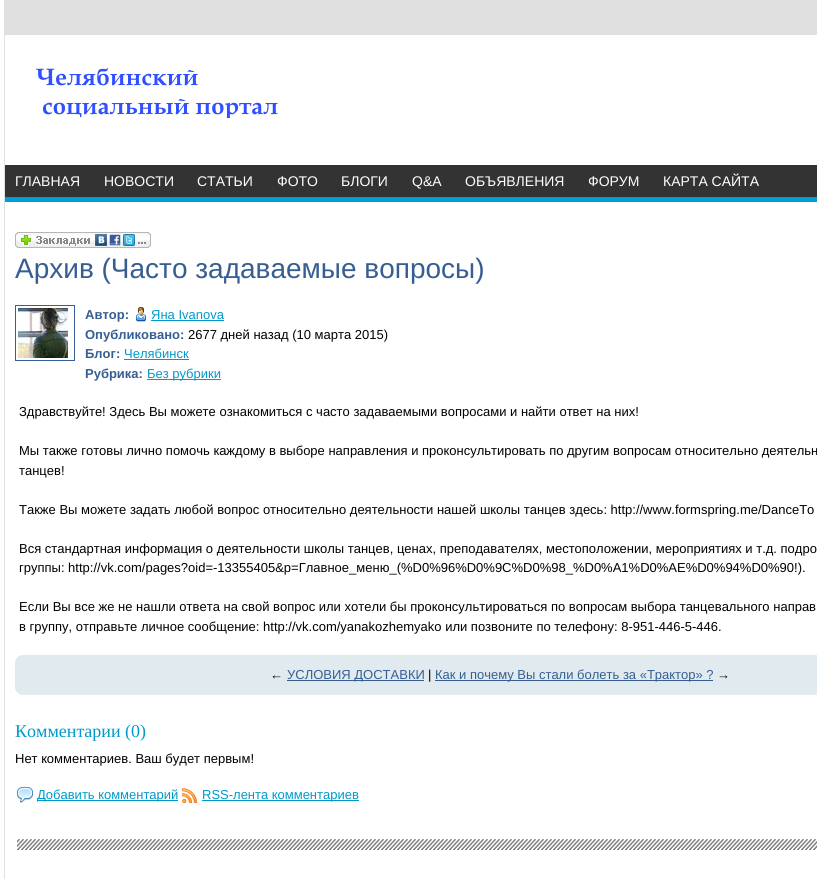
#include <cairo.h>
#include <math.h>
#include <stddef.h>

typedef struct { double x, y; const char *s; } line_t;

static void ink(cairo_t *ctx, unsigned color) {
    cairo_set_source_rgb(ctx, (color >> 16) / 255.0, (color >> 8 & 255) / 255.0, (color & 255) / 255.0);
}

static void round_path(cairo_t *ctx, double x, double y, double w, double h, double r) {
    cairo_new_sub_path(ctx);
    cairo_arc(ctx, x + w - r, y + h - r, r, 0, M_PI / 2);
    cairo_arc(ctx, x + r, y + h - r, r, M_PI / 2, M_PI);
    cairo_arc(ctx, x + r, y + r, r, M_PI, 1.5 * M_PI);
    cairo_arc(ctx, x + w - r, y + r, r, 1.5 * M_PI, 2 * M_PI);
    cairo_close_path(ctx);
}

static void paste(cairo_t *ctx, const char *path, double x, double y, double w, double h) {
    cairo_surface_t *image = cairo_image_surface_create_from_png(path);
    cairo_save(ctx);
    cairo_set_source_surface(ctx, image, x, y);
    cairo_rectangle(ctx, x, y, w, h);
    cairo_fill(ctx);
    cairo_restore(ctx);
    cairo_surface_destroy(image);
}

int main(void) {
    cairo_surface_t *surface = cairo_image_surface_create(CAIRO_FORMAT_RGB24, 817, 879);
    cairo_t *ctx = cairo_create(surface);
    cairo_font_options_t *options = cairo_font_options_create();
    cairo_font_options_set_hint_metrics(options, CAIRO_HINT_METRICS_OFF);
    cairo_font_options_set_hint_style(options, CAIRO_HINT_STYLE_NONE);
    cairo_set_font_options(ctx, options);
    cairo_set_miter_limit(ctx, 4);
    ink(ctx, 0xFFFFFF);
    cairo_paint(ctx);
    ink(ctx, 0xE0E0E0);
    cairo_rectangle(ctx, 4, 0, 1, 879);
    cairo_fill(ctx);
    cairo_rectangle(ctx, 5, 0, 812, 35);
    cairo_fill(ctx);
    paste(ctx, "media/1.png", 36, 68, 242, 50);
    ink(ctx, 0x333333);
    cairo_rectangle(ctx, 5, 165, 812, 32);
    cairo_fill(ctx);
    ink(ctx, 0x009ED8);
    cairo_rectangle(ctx, 5, 197, 812, 5);
    cairo_fill(ctx);
    cairo_select_font_face(ctx, "Liberation Sans", CAIRO_FONT_SLANT_NORMAL, CAIRO_FONT_WEIGHT_NORMAL);
    cairo_set_font_size(ctx, 14);
    ink(ctx, 0xFFFFFF);
    {
        static const line_t items[] = {
            {15, 186, "ГЛАВНАЯ"},
            {104, 186, "НОВОСТИ"},
            {197, 186, "СТАТЬИ"},
            {277, 186, "ФОТО"},
            {341, 186, "БЛОГИ"},
            {412, 186, "Q&A"},
            {465, 186, "ОБЪЯВЛЕНИЯ"},
            {588, 186, "ФОРУМ"},
            {663, 186, "КАРТА САЙТА"},
        };
        for (size_t i = 0; i < sizeof items / sizeof *items; i++) {
            cairo_move_to(ctx, items[i].x, items[i].y);
            cairo_show_text(ctx, items[i].s);
        }
    }
    paste(ctx, "media/2.png", 15, 232, 136, 16);
    cairo_set_font_size(ctx, 28);
    ink(ctx, 0x375E93);
    cairo_move_to(ctx, 15, 278);
    cairo_show_text(ctx, "Архив (Часто задаваемые вопросы)");
    cairo_rectangle(ctx, 15.5, 305.5, 59, 55);
    cairo_set_line_width(ctx, 1);
    cairo_stroke(ctx);
    paste(ctx, "media/3.png", 18, 308, 50, 50);
    cairo_select_font_face(ctx, "Liberation Sans", CAIRO_FONT_SLANT_NORMAL, CAIRO_FONT_WEIGHT_BOLD);
    cairo_set_font_size(ctx, 13);
    cairo_move_to(ctx, 85, 319);
    cairo_show_text(ctx, "Автор:");
    paste(ctx, "media/4.png", 136, 307, 10, 15);
    cairo_select_font_face(ctx, "Liberation Sans", CAIRO_FONT_SLANT_NORMAL, CAIRO_FONT_WEIGHT_NORMAL);
    ink(ctx, 0x0099CC);
    cairo_move_to(ctx, 151, 319);
    cairo_show_text(ctx, "Яна Ivanova");
    cairo_rectangle(ctx, 151, 320, 73, 1);
    cairo_fill(ctx);
    cairo_select_font_face(ctx, "Liberation Sans", CAIRO_FONT_SLANT_NORMAL, CAIRO_FONT_WEIGHT_BOLD);
    ink(ctx, 0x375E93);
    cairo_move_to(ctx, 85, 339);
    cairo_show_text(ctx, "Опубликовано:");
    cairo_select_font_face(ctx, "Liberation Sans", CAIRO_FONT_SLANT_NORMAL, CAIRO_FONT_WEIGHT_NORMAL);
    ink(ctx, 0x000000);
    cairo_move_to(ctx, 188, 339);
    cairo_show_text(ctx, "2677 дней назад (10 марта 2015)");
    cairo_select_font_face(ctx, "Liberation Sans", CAIRO_FONT_SLANT_NORMAL, CAIRO_FONT_WEIGHT_BOLD);
    ink(ctx, 0x375E93);
    cairo_move_to(ctx, 85, 358);
    cairo_show_text(ctx, "Блог:");
    cairo_select_font_face(ctx, "Liberation Sans", CAIRO_FONT_SLANT_NORMAL, CAIRO_FONT_WEIGHT_NORMAL);
    ink(ctx, 0x0099CC);
    cairo_move_to(ctx, 124, 358);
    cairo_show_text(ctx, "Челябинск");
    cairo_rectangle(ctx, 124, 359, 65, 1);
    cairo_fill(ctx);
    cairo_select_font_face(ctx, "Liberation Sans", CAIRO_FONT_SLANT_NORMAL, CAIRO_FONT_WEIGHT_BOLD);
    ink(ctx, 0x375E93);
    cairo_move_to(ctx, 85, 378);
    cairo_show_text(ctx, "Рубрика:");
    ink(ctx, 0x0099CC);
    cairo_rectangle(ctx, 147, 379, 74, 1);
    cairo_fill(ctx);
    cairo_select_font_face(ctx, "Liberation Sans", CAIRO_FONT_SLANT_NORMAL, CAIRO_FONT_WEIGHT_NORMAL);
    cairo_move_to(ctx, 147, 378);
    cairo_show_text(ctx, "Без рубрики");
    ink(ctx, 0x000000);
    {
        static const line_t items[] = {
            {19, 416, "Здравствуйте! Здесь Вы можете ознакомиться с часто задаваемыми вопросами и найти ответ на них!"},
            {19, 455, "Мы также готовы лично помочь каждому в выборе направления и проконсультировать по другим вопросам относительно деятельн"},
            {19, 475, "танцев!"},
            {19, 514, "Также Вы можете задать любой вопрос относительно деятельности нашей школы танцев здесь: http://www.formspring.me/DanceTo"},
            {19, 553, "Вся стандартная информация о деятельности школы танцев, ценах, преподавателях, местоположении, мероприятиях и т.д. подро"},
            {19, 572, "группы: http://vk.com/pages?oid=-13355405&p=Главное_меню_(%D0%96%D0%9C%D0%98_%D0%A1%D0%AE%D0%94%D0%90!)."},
            {19, 611, "Если Вы все же не нашли ответа на свой вопрос или хотели бы проконсультироваться по вопросам выбора танцевального направ"},
            {19, 631, "в группу, отправьте личное сообщение: http://vk.com/yanakozhemyako или позвоните по телефону: 8-951-446-5-446."},
        };
        for (size_t i = 0; i < sizeof items / sizeof *items; i++) {
            cairo_move_to(ctx, items[i].x, items[i].y);
            cairo_show_text(ctx, items[i].s);
        }
    }
    ink(ctx, 0xE0EAEF);
    round_path(ctx, 15, 655, 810, 40, 8);
    cairo_fill(ctx);
    ink(ctx, 0x000000);
    cairo_move_to(ctx, 270, 679);
    cairo_show_text(ctx, "←");
    ink(ctx, 0x375E93);
    cairo_rectangle(ctx, 287, 680, 137, 1);
    cairo_fill(ctx);
    cairo_move_to(ctx, 287, 679);
    cairo_show_text(ctx, "УСЛОВИЯ ДОСТАВКИ");
    ink(ctx, 0x000000);
    cairo_move_to(ctx, 428, 679);
    cairo_show_text(ctx, "|");
    ink(ctx, 0x375E93);
    cairo_rectangle(ctx, 435, 680, 278, 1);
    cairo_fill(ctx);
    cairo_move_to(ctx, 435, 679);
    cairo_show_text(ctx, "Как и почему Вы стали болеть за «Трактор» ?");
    ink(ctx, 0x000000);
    cairo_move_to(ctx, 717, 679);
    cairo_show_text(ctx, "→");
    cairo_select_font_face(ctx, "Liberation Serif", CAIRO_FONT_SLANT_NORMAL, CAIRO_FONT_WEIGHT_NORMAL);
    cairo_set_font_size(ctx, 18);
    ink(ctx, 0x0099CC);
    cairo_move_to(ctx, 15, 737);
    cairo_show_text(ctx, "Комментарии (0)");
    cairo_select_font_face(ctx, "Liberation Sans", CAIRO_FONT_SLANT_NORMAL, CAIRO_FONT_WEIGHT_NORMAL);
    cairo_set_font_size(ctx, 13);
    ink(ctx, 0x000000);
    cairo_move_to(ctx, 15, 763);
    cairo_show_text(ctx, "Нет комментариев. Ваш будет первым!");
    paste(ctx, "media/5.png", 17, 787, 16, 16);
    ink(ctx, 0x0099CC);
    cairo_rectangle(ctx, 37, 800, 141, 1);
    cairo_fill(ctx);
    cairo_move_to(ctx, 37, 799);
    cairo_show_text(ctx, "Добавить комментарий");
    paste(ctx, "media/6.png", 182, 788, 15, 15);
    cairo_rectangle(ctx, 202, 800, 157, 1);
    cairo_fill(ctx);
    cairo_move_to(ctx, 202, 799);
    cairo_show_text(ctx, "RSS-лента комментариев");
    paste(ctx, "media/7.png", 17, 839, 800, 11);
    cairo_surface_write_to_png(surface, "image.png");
    cairo_font_options_destroy(options);
    cairo_destroy(ctx);
    cairo_surface_destroy(surface);
    return 0;
}
